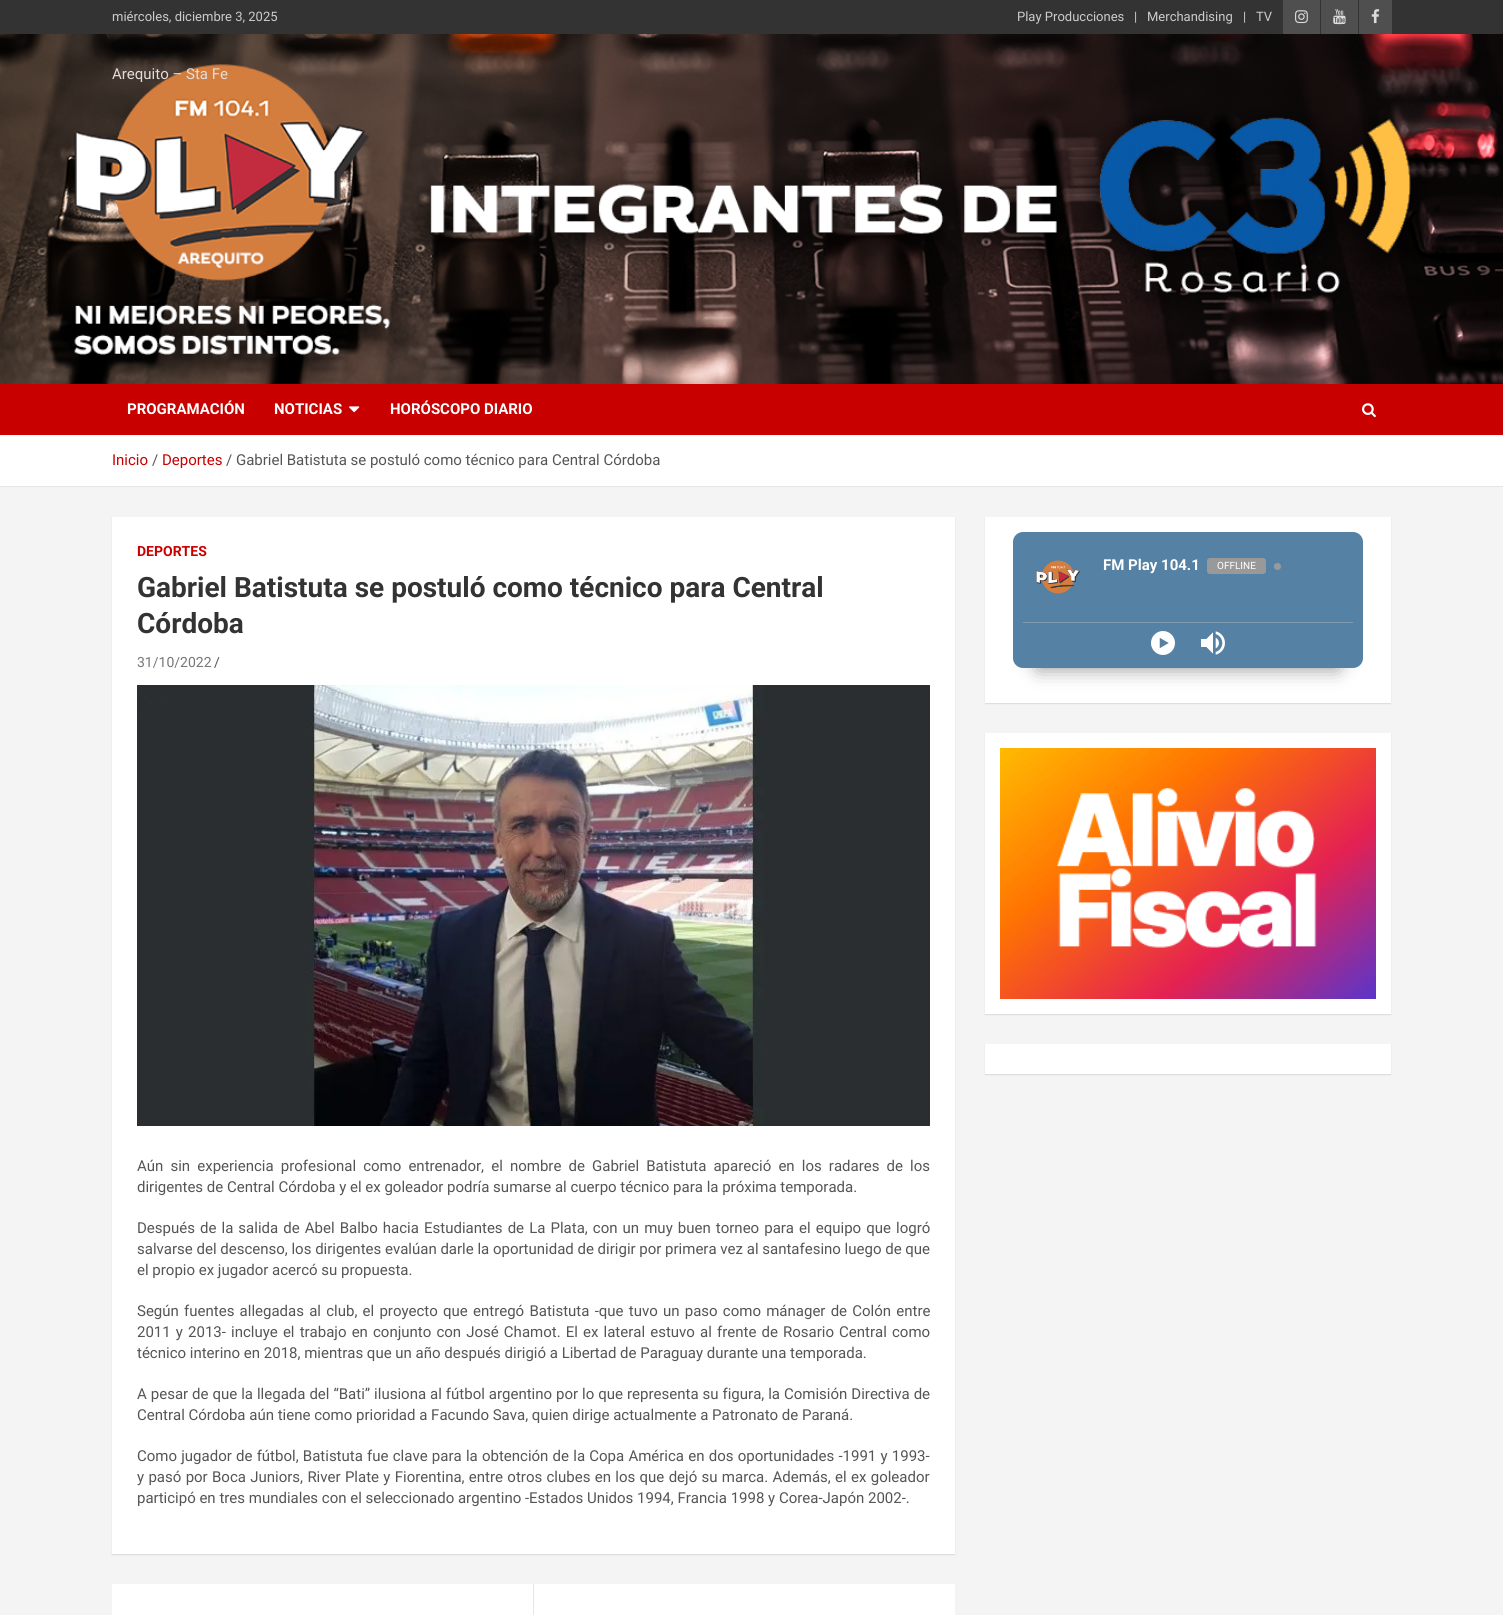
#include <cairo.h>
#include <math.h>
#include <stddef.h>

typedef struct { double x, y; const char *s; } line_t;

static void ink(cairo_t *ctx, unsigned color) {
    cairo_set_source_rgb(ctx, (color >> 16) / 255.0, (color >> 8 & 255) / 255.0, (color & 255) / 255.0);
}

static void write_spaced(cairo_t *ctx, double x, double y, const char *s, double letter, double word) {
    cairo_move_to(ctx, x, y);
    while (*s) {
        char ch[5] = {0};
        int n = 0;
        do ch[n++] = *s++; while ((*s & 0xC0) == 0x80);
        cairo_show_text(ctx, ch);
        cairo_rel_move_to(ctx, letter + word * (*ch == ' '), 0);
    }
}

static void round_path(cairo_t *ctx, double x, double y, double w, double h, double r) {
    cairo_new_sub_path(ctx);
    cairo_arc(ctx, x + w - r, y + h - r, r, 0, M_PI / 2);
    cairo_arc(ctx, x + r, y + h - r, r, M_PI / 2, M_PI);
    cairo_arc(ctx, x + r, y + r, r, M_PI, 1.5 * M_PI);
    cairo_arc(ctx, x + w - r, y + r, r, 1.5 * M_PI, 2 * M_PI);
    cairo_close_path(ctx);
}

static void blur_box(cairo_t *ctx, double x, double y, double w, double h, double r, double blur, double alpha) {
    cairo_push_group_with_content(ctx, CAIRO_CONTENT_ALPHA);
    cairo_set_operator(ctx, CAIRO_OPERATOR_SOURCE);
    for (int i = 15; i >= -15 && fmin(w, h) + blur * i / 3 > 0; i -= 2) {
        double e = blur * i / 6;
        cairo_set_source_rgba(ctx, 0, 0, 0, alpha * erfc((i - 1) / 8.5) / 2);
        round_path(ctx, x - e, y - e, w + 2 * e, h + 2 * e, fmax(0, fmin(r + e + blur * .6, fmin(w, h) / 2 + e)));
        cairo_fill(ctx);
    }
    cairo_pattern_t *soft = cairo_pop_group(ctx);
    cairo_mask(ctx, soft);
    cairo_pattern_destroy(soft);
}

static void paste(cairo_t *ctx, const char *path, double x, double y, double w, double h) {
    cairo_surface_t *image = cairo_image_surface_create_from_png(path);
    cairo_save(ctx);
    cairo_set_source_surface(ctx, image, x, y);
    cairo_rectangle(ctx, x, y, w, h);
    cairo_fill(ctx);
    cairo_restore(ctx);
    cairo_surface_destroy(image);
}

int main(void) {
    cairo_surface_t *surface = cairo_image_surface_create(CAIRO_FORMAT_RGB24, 1503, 1615);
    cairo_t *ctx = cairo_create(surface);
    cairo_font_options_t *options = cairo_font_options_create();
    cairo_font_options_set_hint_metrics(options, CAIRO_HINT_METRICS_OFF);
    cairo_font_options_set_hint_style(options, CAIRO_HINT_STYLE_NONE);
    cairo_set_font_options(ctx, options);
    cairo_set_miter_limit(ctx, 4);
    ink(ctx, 0xF4F4F4);
    cairo_paint(ctx);
    ink(ctx, 0x333333);
    cairo_rectangle(ctx, 0, 0, 1503, 34);
    cairo_fill(ctx);
    cairo_select_font_face(ctx, "Roboto", CAIRO_FONT_SLANT_NORMAL, CAIRO_FONT_WEIGHT_NORMAL);
    cairo_set_font_size(ctx, 13);
    ink(ctx, 0xCCCCCC);
    {
        static const line_t items[] = {
            {112, 21, "miércoles, diciembre 3, 2025"},
            {1017, 21, "Play Producciones"},
            {1134, 21, "|"},
            {1147, 21, "Merchandising"},
            {1243, 21, "|"},
            {1256, 21, "TV"},
        };
        for (size_t i = 0; i < sizeof items / sizeof *items; i++) {
            cairo_move_to(ctx, items[i].x, items[i].y);
            cairo_show_text(ctx, items[i].s);
        }
    }
    ink(ctx, 0x4F4F4F);
    cairo_rectangle(ctx, 1283, 0, 37, 34);
    cairo_fill(ctx);
    paste(ctx, "media/1.png", 1295, 10, 13, 14);
    cairo_rectangle(ctx, 1321, 0, 37, 34);
    cairo_fill(ctx);
    paste(ctx, "media/2.png", 1333, 9, 13, 16);
    cairo_rectangle(ctx, 1359, 0, 33, 34);
    cairo_fill(ctx);
    paste(ctx, "media/3.png", 1371, 9, 9, 15);
    paste(ctx, "media/4.png", 0, 34, 1503, 350);
    cairo_set_font_size(ctx, 15);
    ink(ctx, 0xE5DDD7);
    cairo_move_to(ctx, 112, 79);
    cairo_show_text(ctx, "Arequito – Sta Fe");
    ink(ctx, 0xC80000);
    cairo_rectangle(ctx, 0, 384, 1503, 51);
    cairo_fill(ctx);
    cairo_select_font_face(ctx, "Roboto", CAIRO_FONT_SLANT_NORMAL, CAIRO_FONT_WEIGHT_BOLD);
    ink(ctx, 0xFFFFFF);
    cairo_move_to(ctx, 127, 414);
    cairo_show_text(ctx, "PROGRAMACIÓN");
    cairo_move_to(ctx, 274, 414);
    cairo_show_text(ctx, "NOTICIAS");
    paste(ctx, "media/5.png", 349, 406, 11, 7);
    cairo_move_to(ctx, 390, 414);
    cairo_show_text(ctx, "HORÓSCOPO DIARIO");
    paste(ctx, "media/6.png", 1362, 403, 14, 15);
    cairo_rectangle(ctx, 0, 435, 1503, 51);
    cairo_fill(ctx);
    ink(ctx, 0xE6E6E6);
    cairo_rectangle(ctx, 0, 486, 1503, 1);
    cairo_fill(ctx);
    cairo_select_font_face(ctx, "Roboto", CAIRO_FONT_SLANT_NORMAL, CAIRO_FONT_WEIGHT_NORMAL);
    ink(ctx, 0xC80000);
    cairo_move_to(ctx, 112, 465);
    cairo_show_text(ctx, "Inicio");
    ink(ctx, 0x555555);
    cairo_move_to(ctx, 152, 465);
    cairo_show_text(ctx, "/");
    ink(ctx, 0xC80000);
    cairo_move_to(ctx, 162, 465);
    cairo_show_text(ctx, "Deportes");
    ink(ctx, 0x555555);
    cairo_move_to(ctx, 226, 465);
    cairo_show_text(ctx, "/ Gabriel Batistuta se postuló como técnico para Central Córdoba");
    ink(ctx, 0x000000);
    blur_box(ctx, 112, 518, 843, 1037, 0, 0.5, 0.1);
    ink(ctx, 0xFFFFFF);
    cairo_rectangle(ctx, 112, 517, 843, 1037);
    cairo_fill(ctx);
    cairo_select_font_face(ctx, "Roboto", CAIRO_FONT_SLANT_NORMAL, CAIRO_FONT_WEIGHT_BOLD);
    cairo_set_font_size(ctx, 14);
    ink(ctx, 0xC80000);
    cairo_move_to(ctx, 137, 556);
    cairo_show_text(ctx, "DEPORTES");
    cairo_set_font_size(ctx, 28);
    ink(ctx, 0x333333);
    cairo_move_to(ctx, 137, 597);
    cairo_show_text(ctx, "Gabriel Batistuta se postuló como técnico para Central");
    cairo_move_to(ctx, 137, 633);
    cairo_show_text(ctx, "Córdoba");
    cairo_select_font_face(ctx, "Roboto", CAIRO_FONT_SLANT_NORMAL, CAIRO_FONT_WEIGHT_NORMAL);
    cairo_set_font_size(ctx, 14);
    ink(ctx, 0x777777);
    cairo_move_to(ctx, 137, 667);
    cairo_show_text(ctx, "31/10/2022");
    ink(ctx, 0x555555);
    cairo_move_to(ctx, 214, 667);
    cairo_show_text(ctx, "/");
    paste(ctx, "media/7.png", 137, 685, 793, 441);
    cairo_set_font_size(ctx, 15);
    write_spaced(ctx, 137, 1171, "Aún sin experiencia profesional como entrenador, el nombre de Gabriel Batistuta apareció en los radares de los", 0, 3.4);
    cairo_move_to(ctx, 137, 1192);
    cairo_show_text(ctx, "dirigentes de Central Córdoba y el ex goleador podría sumarse al cuerpo técnico para la próxima temporada.");
    write_spaced(ctx, 137, 1233, "Después de la salida de Abel Balbo hacia Estudiantes de La Plata, con un muy buen torneo para el equipo que logró", 0, 1.35);
    cairo_move_to(ctx, 137, 1254);
    cairo_show_text(ctx, "salvarse del descenso, los dirigentes evalúan darle la oportunidad de dirigir por primera vez al santafesino luego de que");
    cairo_move_to(ctx, 137, 1275);
    cairo_show_text(ctx, "el propio ex jugador acercó su propuesta.");
    write_spaced(ctx, 137, 1316, "Según fuentes allegadas al club, el proyecto que entregó Batistuta -que tuvo un paso como mánager de Colón entre", 0, 1.5);
    write_spaced(ctx, 137, 1337, "2011 y 2013- incluye el trabajo en conjunto con José Chamot. El ex lateral estuvo al frente de Rosario Central como", 0, 1.4);
    cairo_move_to(ctx, 137, 1358);
    cairo_show_text(ctx, "técnico interino en 2018, mientras que un año después dirigió a Libertad de Paraguay durante una temporada.");
    write_spaced(ctx, 137, 1399, "A pesar de que la llegada del “Bati” ilusiona al fútbol argentino por lo que representa su figura, la Comisión Directiva de", 0, 0.25);
    cairo_move_to(ctx, 137, 1420);
    cairo_show_text(ctx, "Central Córdoba aún tiene como prioridad a Facundo Sava, quien dirige actualmente a Patronato de Paraná.");
    write_spaced(ctx, 137, 1461, "Como jugador de fútbol, Batistuta fue clave para la obtención de la Copa América en dos oportunidades -1991 y 1993-", 0, 0.5);
    write_spaced(ctx, 137, 1482, "y pasó por Boca Juniors, River Plate y Fiorentina, entre otros clubes en los que dejó su marca. Además, el ex goleador", 0, 0.6);
    cairo_move_to(ctx, 137, 1503);
    cairo_show_text(ctx, "participó en tres mundiales con el seleccionado argentino -Estados Unidos 1994, Francia 1998 y Corea-Japón 2002-.");
    ink(ctx, 0xFFFFFF);
    cairo_rectangle(ctx, 112, 1584, 843, 31);
    cairo_fill(ctx);
    ink(ctx, 0xE6E6E6);
    cairo_rectangle(ctx, 533, 1584, 1, 31);
    cairo_fill(ctx);
    ink(ctx, 0x000000);
    blur_box(ctx, 985, 518, 406, 186, 0, 0.5, 0.1);
    ink(ctx, 0xFFFFFF);
    cairo_rectangle(ctx, 985, 517, 406, 186);
    cairo_fill(ctx);
    ink(ctx, 0x000000);
    blur_box(ctx, 1038, 582, 300, 86, 0, 10, 0.45);
    ink(ctx, 0x5581A4);
    round_path(ctx, 1013, 532, 350, 136, 10);
    cairo_fill(ctx);
    paste(ctx, "media/8.png", 1036, 560, 44, 34);
    cairo_select_font_face(ctx, "Roboto", CAIRO_FONT_SLANT_NORMAL, CAIRO_FONT_WEIGHT_BOLD);
    ink(ctx, 0xFFFFFF);
    cairo_move_to(ctx, 1103, 570);
    cairo_show_text(ctx, "FM Play 104.1");
    ink(ctx, 0x999999);
    round_path(ctx, 1207, 558, 59, 16, 3);
    cairo_fill(ctx);
    cairo_select_font_face(ctx, "Roboto", CAIRO_FONT_SLANT_NORMAL, CAIRO_FONT_WEIGHT_NORMAL);
    cairo_set_font_size(ctx, 10);
    ink(ctx, 0xFFFFFF);
    cairo_move_to(ctx, 1217, 569);
    cairo_show_text(ctx, "OFFLINE");
    ink(ctx, 0x999999);
    cairo_new_path(ctx);
    cairo_arc(ctx, 1277.5, 566.5, 3.5, 0, 2 * M_PI);
    cairo_fill(ctx);
    ink(ctx, 0x7E9DB5);
    cairo_rectangle(ctx, 1023, 622, 330, 1);
    cairo_fill(ctx);
    paste(ctx, "media/9.png", 1151, 631, 24, 24);
    paste(ctx, "media/10.png", 1201, 631, 24, 24);
    ink(ctx, 0x000000);
    blur_box(ctx, 985, 734, 406, 281, 0, 0.5, 0.1);
    ink(ctx, 0xFFFFFF);
    cairo_rectangle(ctx, 985, 733, 406, 281);
    cairo_fill(ctx);
    paste(ctx, "media/11.png", 1000, 748, 376, 251);
    ink(ctx, 0x000000);
    blur_box(ctx, 985, 1045, 406, 30, 0, 0.5, 0.1);
    ink(ctx, 0xFFFFFF);
    cairo_rectangle(ctx, 985, 1044, 406, 30);
    cairo_fill(ctx);
    cairo_surface_write_to_png(surface, "image.png");
    cairo_font_options_destroy(options);
    cairo_destroy(ctx);
    cairo_surface_destroy(surface);
    return 0;
}
